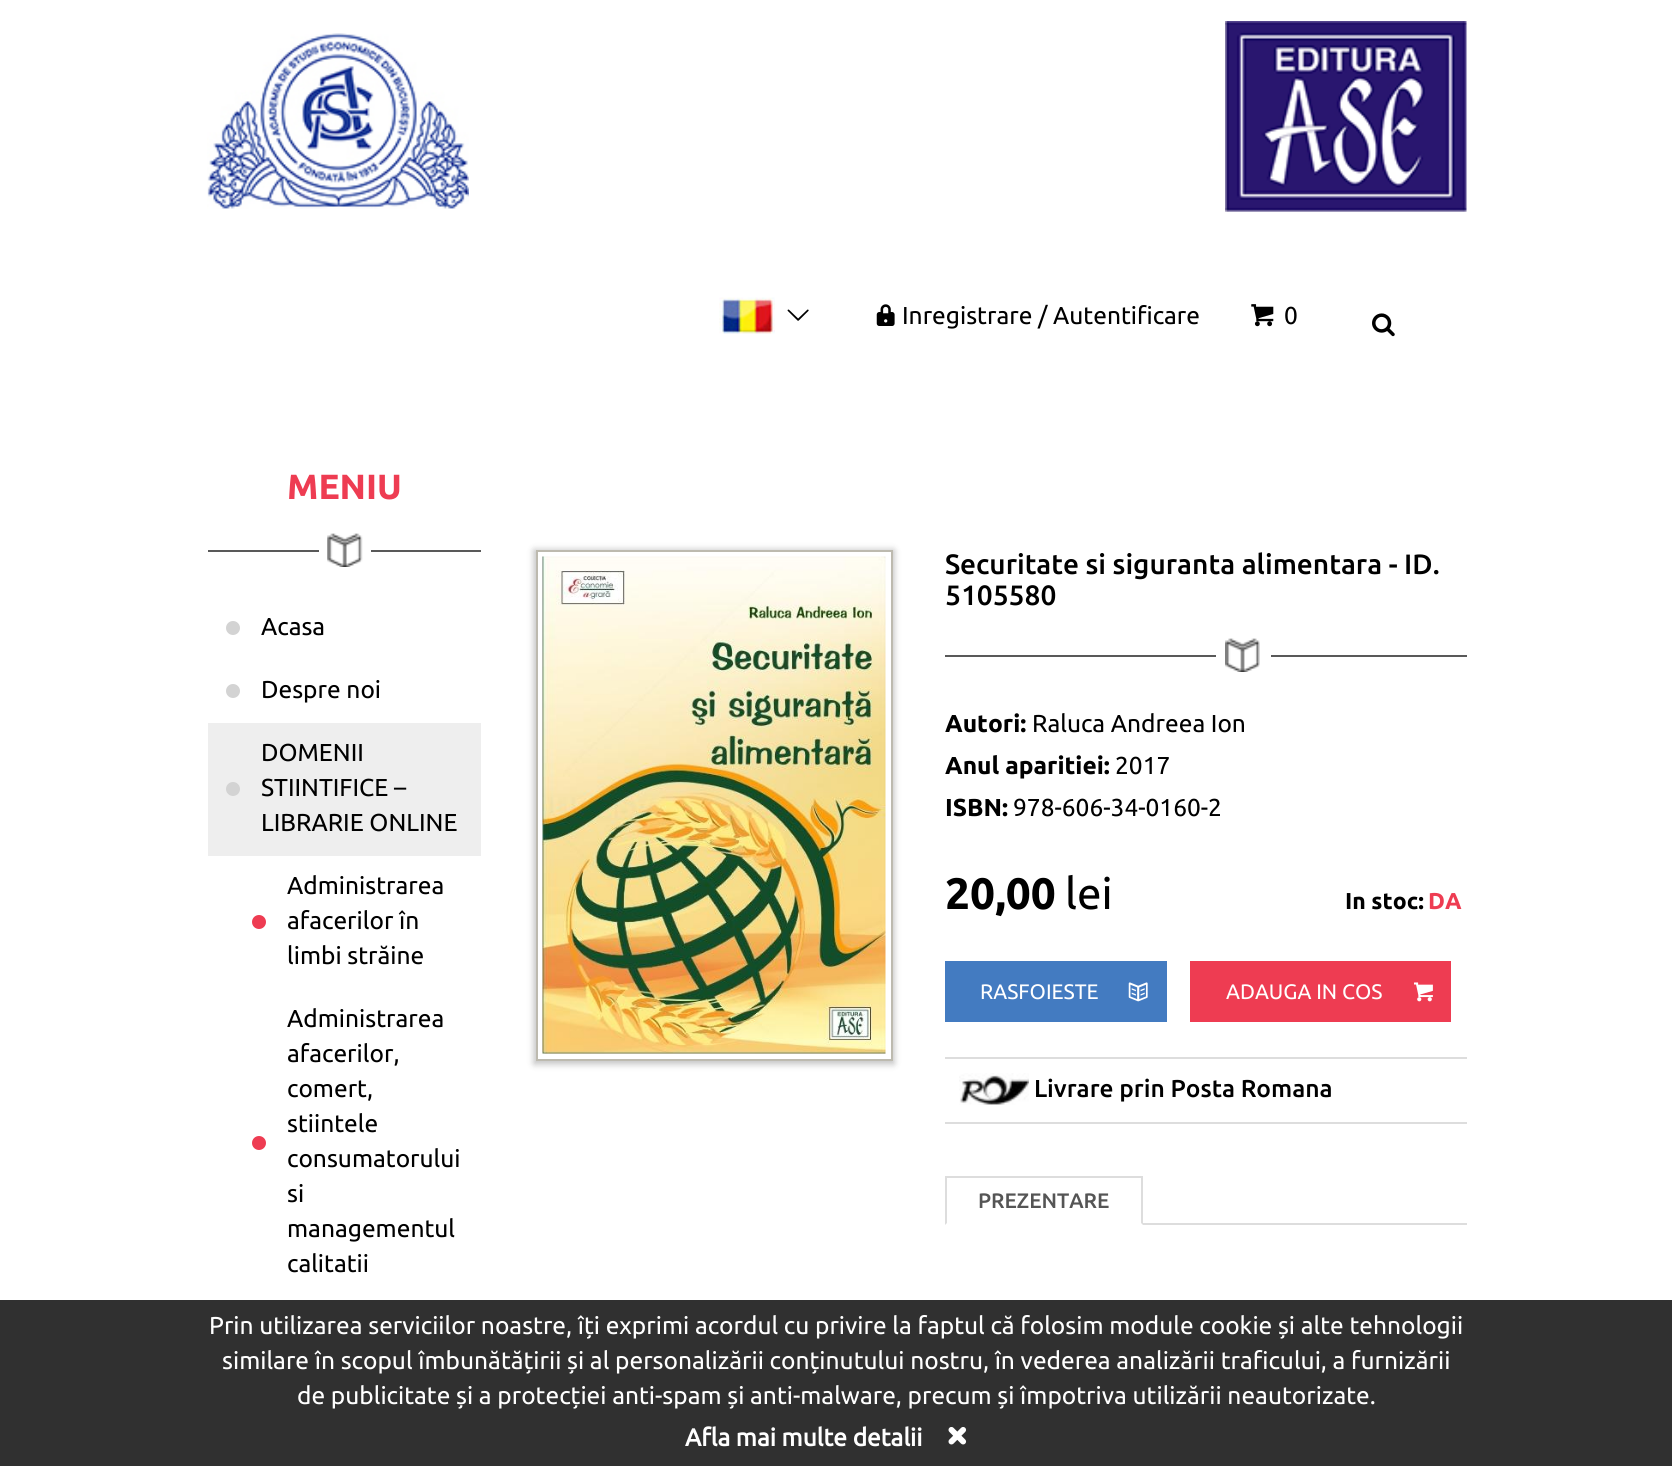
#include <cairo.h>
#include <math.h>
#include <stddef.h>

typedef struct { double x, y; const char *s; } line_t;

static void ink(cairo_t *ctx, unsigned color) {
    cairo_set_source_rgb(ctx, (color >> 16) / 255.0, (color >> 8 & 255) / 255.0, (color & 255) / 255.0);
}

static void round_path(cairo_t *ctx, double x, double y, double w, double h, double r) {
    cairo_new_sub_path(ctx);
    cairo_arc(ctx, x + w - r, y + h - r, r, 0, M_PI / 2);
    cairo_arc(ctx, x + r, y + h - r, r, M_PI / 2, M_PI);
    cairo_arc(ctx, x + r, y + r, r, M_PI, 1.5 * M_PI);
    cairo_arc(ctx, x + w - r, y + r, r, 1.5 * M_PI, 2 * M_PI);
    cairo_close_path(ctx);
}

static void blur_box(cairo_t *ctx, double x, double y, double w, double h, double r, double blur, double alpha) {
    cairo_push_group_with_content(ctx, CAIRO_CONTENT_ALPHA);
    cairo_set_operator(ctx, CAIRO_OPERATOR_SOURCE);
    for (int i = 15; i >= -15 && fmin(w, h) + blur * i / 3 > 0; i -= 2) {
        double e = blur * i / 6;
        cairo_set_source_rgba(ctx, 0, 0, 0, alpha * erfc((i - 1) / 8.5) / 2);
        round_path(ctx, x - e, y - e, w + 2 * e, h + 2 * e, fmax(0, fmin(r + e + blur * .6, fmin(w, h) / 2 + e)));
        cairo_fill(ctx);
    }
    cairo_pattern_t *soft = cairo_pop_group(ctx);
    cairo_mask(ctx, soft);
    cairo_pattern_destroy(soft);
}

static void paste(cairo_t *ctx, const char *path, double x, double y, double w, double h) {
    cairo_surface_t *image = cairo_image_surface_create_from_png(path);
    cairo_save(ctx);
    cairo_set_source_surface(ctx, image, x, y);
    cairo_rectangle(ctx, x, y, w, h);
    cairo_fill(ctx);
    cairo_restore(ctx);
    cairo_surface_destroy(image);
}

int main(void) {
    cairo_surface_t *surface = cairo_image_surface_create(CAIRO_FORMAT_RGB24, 1672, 1466);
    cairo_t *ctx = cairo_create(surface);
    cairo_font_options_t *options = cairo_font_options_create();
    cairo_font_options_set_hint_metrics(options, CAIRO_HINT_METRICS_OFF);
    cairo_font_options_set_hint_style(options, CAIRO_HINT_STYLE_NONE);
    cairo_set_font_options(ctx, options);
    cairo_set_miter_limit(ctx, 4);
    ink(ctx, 0xFFFFFF);
    cairo_paint(ctx);
    paste(ctx, "media/1.png", 207, 33, 262, 176);
    paste(ctx, "media/2.png", 1225, 21, 242, 191);
    paste(ctx, "media/3.png", 719, 297, 56, 37);
    paste(ctx, "media/4.png", 787, 309, 22, 12);
    paste(ctx, "media/5.png", 876, 304, 19, 22);
    cairo_select_font_face(ctx, "Ubuntu", CAIRO_FONT_SLANT_NORMAL, CAIRO_FONT_WEIGHT_NORMAL);
    cairo_set_font_size(ctx, 24.5);
    ink(ctx, 0x000000);
    cairo_move_to(ctx, 902, 324);
    cairo_show_text(ctx, "Inregistrare / Autentificare");
    paste(ctx, "media/6.png", 1251, 304, 23, 23);
    cairo_move_to(ctx, 1284, 324);
    cairo_show_text(ctx, "0");
    paste(ctx, "media/7.png", 1372, 313, 23, 24);
    cairo_select_font_face(ctx, "Ubuntu", CAIRO_FONT_SLANT_NORMAL, CAIRO_FONT_WEIGHT_BOLD);
    cairo_set_font_size(ctx, 35);
    ink(ctx, 0xEE3C52);
    cairo_move_to(ctx, 287, 499);
    cairo_show_text(ctx, "MENIU");
    paste(ctx, "media/8.png", 327, 533, 36, 34);
    ink(ctx, 0x595959);
    cairo_rectangle(ctx, 208, 550, 111, 2);
    cairo_fill(ctx);
    cairo_rectangle(ctx, 371, 550, 110, 2);
    cairo_fill(ctx);
    ink(ctx, 0xD3D3D3);
    cairo_arc(ctx, 233, 628, 7, 0, 2 * M_PI);
    cairo_fill(ctx);
    cairo_select_font_face(ctx, "Ubuntu", CAIRO_FONT_SLANT_NORMAL, CAIRO_FONT_WEIGHT_NORMAL);
    cairo_set_font_size(ctx, 24.5);
    ink(ctx, 0x000000);
    cairo_move_to(ctx, 261, 635);
    cairo_show_text(ctx, "Acasa");
    ink(ctx, 0xD3D3D3);
    cairo_new_path(ctx);
    cairo_arc(ctx, 233, 691, 7, 0, 2 * M_PI);
    cairo_fill(ctx);
    ink(ctx, 0x000000);
    cairo_move_to(ctx, 261, 698);
    cairo_show_text(ctx, "Despre noi");
    ink(ctx, 0xEEEEEE);
    cairo_rectangle(ctx, 208, 723, 273, 133);
    cairo_fill(ctx);
    ink(ctx, 0x000000);
    cairo_move_to(ctx, 261, 761);
    cairo_show_text(ctx, "DOMENII");
    ink(ctx, 0xD3D3D3);
    cairo_new_path(ctx);
    cairo_arc(ctx, 233, 789, 7, 0, 2 * M_PI);
    cairo_fill(ctx);
    ink(ctx, 0x000000);
    {
        static const line_t items[] = {
            {261, 796, "STIINTIFICE –"},
            {261, 831, "LIBRARIE ONLINE"},
            {287, 894, "Administrarea"},
        };
        for (size_t i = 0; i < sizeof items / sizeof *items; i++) {
            cairo_move_to(ctx, items[i].x, items[i].y);
            cairo_show_text(ctx, items[i].s);
        }
    }
    ink(ctx, 0xEE3C52);
    cairo_new_path(ctx);
    cairo_arc(ctx, 259, 922, 7, 0, 2 * M_PI);
    cairo_fill(ctx);
    ink(ctx, 0x000000);
    {
        static const line_t items[] = {
            {287, 929, "afacerilor în"},
            {287, 964, "limbi străine"},
            {287, 1027, "Administrarea"},
            {287, 1062, "afacerilor,"},
            {287, 1097, "comert,"},
            {287, 1132, "stiintele"},
        };
        for (size_t i = 0; i < sizeof items / sizeof *items; i++) {
            cairo_move_to(ctx, items[i].x, items[i].y);
            cairo_show_text(ctx, items[i].s);
        }
    }
    ink(ctx, 0xEE3C52);
    cairo_new_path(ctx);
    cairo_arc(ctx, 259, 1143, 7, 0, 2 * M_PI);
    cairo_fill(ctx);
    ink(ctx, 0x000000);
    {
        static const line_t items[] = {
            {287, 1167, "consumatorului"},
            {287, 1202, "si"},
            {287, 1237, "managementul"},
            {287, 1272, "calitatii"},
        };
        for (size_t i = 0; i < sizeof items / sizeof *items; i++) {
            cairo_move_to(ctx, items[i].x, items[i].y);
            cairo_show_text(ctx, items[i].s);
        }
    }
    cairo_save(ctx);
    cairo_set_fill_rule(ctx, CAIRO_FILL_RULE_EVEN_ODD);
    cairo_new_path(ctx);
    cairo_move_to(ctx, 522, 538);
    cairo_line_to(ctx, 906, 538);
    cairo_line_to(ctx, 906, 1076);
    cairo_line_to(ctx, 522, 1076);
    cairo_close_path(ctx);
    cairo_move_to(ctx, 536, 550);
    cairo_line_to(ctx, 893, 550);
    cairo_line_to(ctx, 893, 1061);
    cairo_line_to(ctx, 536, 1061);
    cairo_close_path(ctx);
    cairo_clip(ctx);
    ink(ctx, 0x000000);
    blur_box(ctx, 534, 550, 360, 514, 0, 3.5, 0.25);
    cairo_restore(ctx);
    cairo_rectangle(ctx, 537, 551, 355, 509);
    ink(ctx, 0xBDBAAF);
    cairo_stroke(ctx);
    paste(ctx, "media/9.png", 542, 556, 344, 498);
    cairo_select_font_face(ctx, "Ubuntu Medium", CAIRO_FONT_SLANT_NORMAL, CAIRO_FONT_WEIGHT_NORMAL);
    cairo_set_font_size(ctx, 28);
    ink(ctx, 0x000000);
    cairo_move_to(ctx, 945, 574);
    cairo_show_text(ctx, "Securitate si siguranta alimentara - ID.");
    cairo_move_to(ctx, 945, 605);
    cairo_show_text(ctx, "5105580");
    paste(ctx, "media/10.png", 1225, 638, 35, 34);
    ink(ctx, 0x595959);
    cairo_rectangle(ctx, 945, 655, 271, 2);
    cairo_fill(ctx);
    cairo_rectangle(ctx, 1271, 655, 196, 2);
    cairo_fill(ctx);
    cairo_select_font_face(ctx, "Ubuntu", CAIRO_FONT_SLANT_NORMAL, CAIRO_FONT_WEIGHT_BOLD);
    cairo_set_font_size(ctx, 24.5);
    ink(ctx, 0x000000);
    cairo_move_to(ctx, 945, 732);
    cairo_show_text(ctx, "Autori:");
    cairo_select_font_face(ctx, "Ubuntu", CAIRO_FONT_SLANT_NORMAL, CAIRO_FONT_WEIGHT_NORMAL);
    cairo_move_to(ctx, 1032, 732);
    cairo_show_text(ctx, "Raluca Andreea Ion");
    cairo_select_font_face(ctx, "Ubuntu", CAIRO_FONT_SLANT_NORMAL, CAIRO_FONT_WEIGHT_BOLD);
    cairo_move_to(ctx, 945, 774);
    cairo_show_text(ctx, "Anul aparitiei:");
    cairo_select_font_face(ctx, "Ubuntu", CAIRO_FONT_SLANT_NORMAL, CAIRO_FONT_WEIGHT_NORMAL);
    cairo_move_to(ctx, 1115, 774);
    cairo_show_text(ctx, "2017");
    cairo_select_font_face(ctx, "Ubuntu", CAIRO_FONT_SLANT_NORMAL, CAIRO_FONT_WEIGHT_BOLD);
    cairo_move_to(ctx, 945, 816);
    cairo_show_text(ctx, "ISBN:");
    cairo_select_font_face(ctx, "Ubuntu", CAIRO_FONT_SLANT_NORMAL, CAIRO_FONT_WEIGHT_NORMAL);
    cairo_move_to(ctx, 1013, 816);
    cairo_show_text(ctx, "978-606-34-0160-2");
    cairo_select_font_face(ctx, "Ubuntu", CAIRO_FONT_SLANT_NORMAL, CAIRO_FONT_WEIGHT_BOLD);
    cairo_set_font_size(ctx, 44);
    cairo_move_to(ctx, 945, 909);
    cairo_show_text(ctx, "20,00");
    cairo_select_font_face(ctx, "Ubuntu", CAIRO_FONT_SLANT_NORMAL, CAIRO_FONT_WEIGHT_NORMAL);
    cairo_move_to(ctx, 1065, 909);
    cairo_show_text(ctx, "lei");
    cairo_select_font_face(ctx, "Ubuntu", CAIRO_FONT_SLANT_NORMAL, CAIRO_FONT_WEIGHT_BOLD);
    cairo_set_font_size(ctx, 23);
    cairo_move_to(ctx, 1345, 909);
    cairo_show_text(ctx, "In stoc:");
    ink(ctx, 0xEE3C52);
    cairo_move_to(ctx, 1428, 909);
    cairo_show_text(ctx, "DA");
    ink(ctx, 0x437BC1);
    cairo_rectangle(ctx, 945, 961, 222, 61);
    cairo_fill(ctx);
    cairo_select_font_face(ctx, "Ubuntu", CAIRO_FONT_SLANT_NORMAL, CAIRO_FONT_WEIGHT_NORMAL);
    cairo_set_font_size(ctx, 21);
    ink(ctx, 0xFFFFFF);
    cairo_move_to(ctx, 980, 999);
    cairo_show_text(ctx, "RASFOIESTE");
    paste(ctx, "media/11.png", 1128, 982, 20, 20);
    ink(ctx, 0xEE3C52);
    cairo_rectangle(ctx, 1190, 961, 261, 61);
    cairo_fill(ctx);
    ink(ctx, 0xFFFFFF);
    cairo_move_to(ctx, 1226, 999);
    cairo_show_text(ctx, "ADAUGA IN COS");
    paste(ctx, "media/12.png", 1414, 982, 19, 20);
    ink(ctx, 0xDDDDDD);
    cairo_rectangle(ctx, 945, 1122, 522, 2);
    cairo_fill(ctx);
    cairo_rectangle(ctx, 945, 1057, 522, 2);
    cairo_fill(ctx);
    paste(ctx, "media/13.png", 959, 1073, 70, 32);
    cairo_select_font_face(ctx, "Ubuntu Medium", CAIRO_FONT_SLANT_NORMAL, CAIRO_FONT_WEIGHT_NORMAL);
    cairo_set_font_size(ctx, 24.5);
    ink(ctx, 0x000000);
    cairo_move_to(ctx, 1034, 1097);
    cairo_show_text(ctx, "Livrare prin Posta Romana");
    ink(ctx, 0xDDDDDD);
    cairo_rectangle(ctx, 1143, 1223, 324, 2);
    cairo_fill(ctx);
    cairo_rectangle(ctx, 945, 1176, 198, 2);
    cairo_fill(ctx);
    cairo_new_path(ctx);
    cairo_move_to(ctx, 1143, 1176);
    cairo_line_to(ctx, 1143, 1225);
    cairo_line_to(ctx, 1141, 1223);
    cairo_line_to(ctx, 1141, 1178);
    cairo_close_path(ctx);
    cairo_fill(ctx);
    cairo_new_path(ctx);
    cairo_move_to(ctx, 945, 1225);
    cairo_line_to(ctx, 945, 1176);
    cairo_line_to(ctx, 947, 1178);
    cairo_line_to(ctx, 947, 1223);
    cairo_close_path(ctx);
    cairo_fill(ctx);
    cairo_set_font_size(ctx, 21);
    ink(ctx, 0x555555);
    cairo_move_to(ctx, 978, 1208);
    cairo_show_text(ctx, "PREZENTARE");
    ink(ctx, 0x303030);
    cairo_rectangle(ctx, 0, 1300, 1672, 166);
    cairo_fill(ctx);
    cairo_select_font_face(ctx, "Ubuntu", CAIRO_FONT_SLANT_NORMAL, CAIRO_FONT_WEIGHT_NORMAL);
    cairo_set_font_size(ctx, 24.5);
    ink(ctx, 0xFFFFFF);
    {
        static const line_t items[] = {
            {209, 1334, "Prin utilizarea serviciilor noastre, îți exprimi acordul cu privire la faptul că folosim module cookie și alte tehnologii"},
            {222, 1369, "similare în scopul îmbunătățirii și al personalizării conținutului nostru, în vederea analizării traficului, a furnizării"},
            {297, 1404, "de publicitate și a protecției anti-spam și anti-malware, precum și împotriva utilizării neautorizate."},
        };
        for (size_t i = 0; i < sizeof items / sizeof *items; i++) {
            cairo_move_to(ctx, items[i].x, items[i].y);
            cairo_show_text(ctx, items[i].s);
        }
    }
    cairo_select_font_face(ctx, "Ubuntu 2", CAIRO_FONT_SLANT_NORMAL, CAIRO_FONT_WEIGHT_BOLD);
    cairo_move_to(ctx, 685, 1446);
    cairo_show_text(ctx, "Afla mai multe detalii");
    paste(ctx, "media/14.png", 948, 1427, 19, 18);
    cairo_surface_write_to_png(surface, "image.png");
    cairo_font_options_destroy(options);
    cairo_destroy(ctx);
    cairo_surface_destroy(surface);
    return 0;
}
